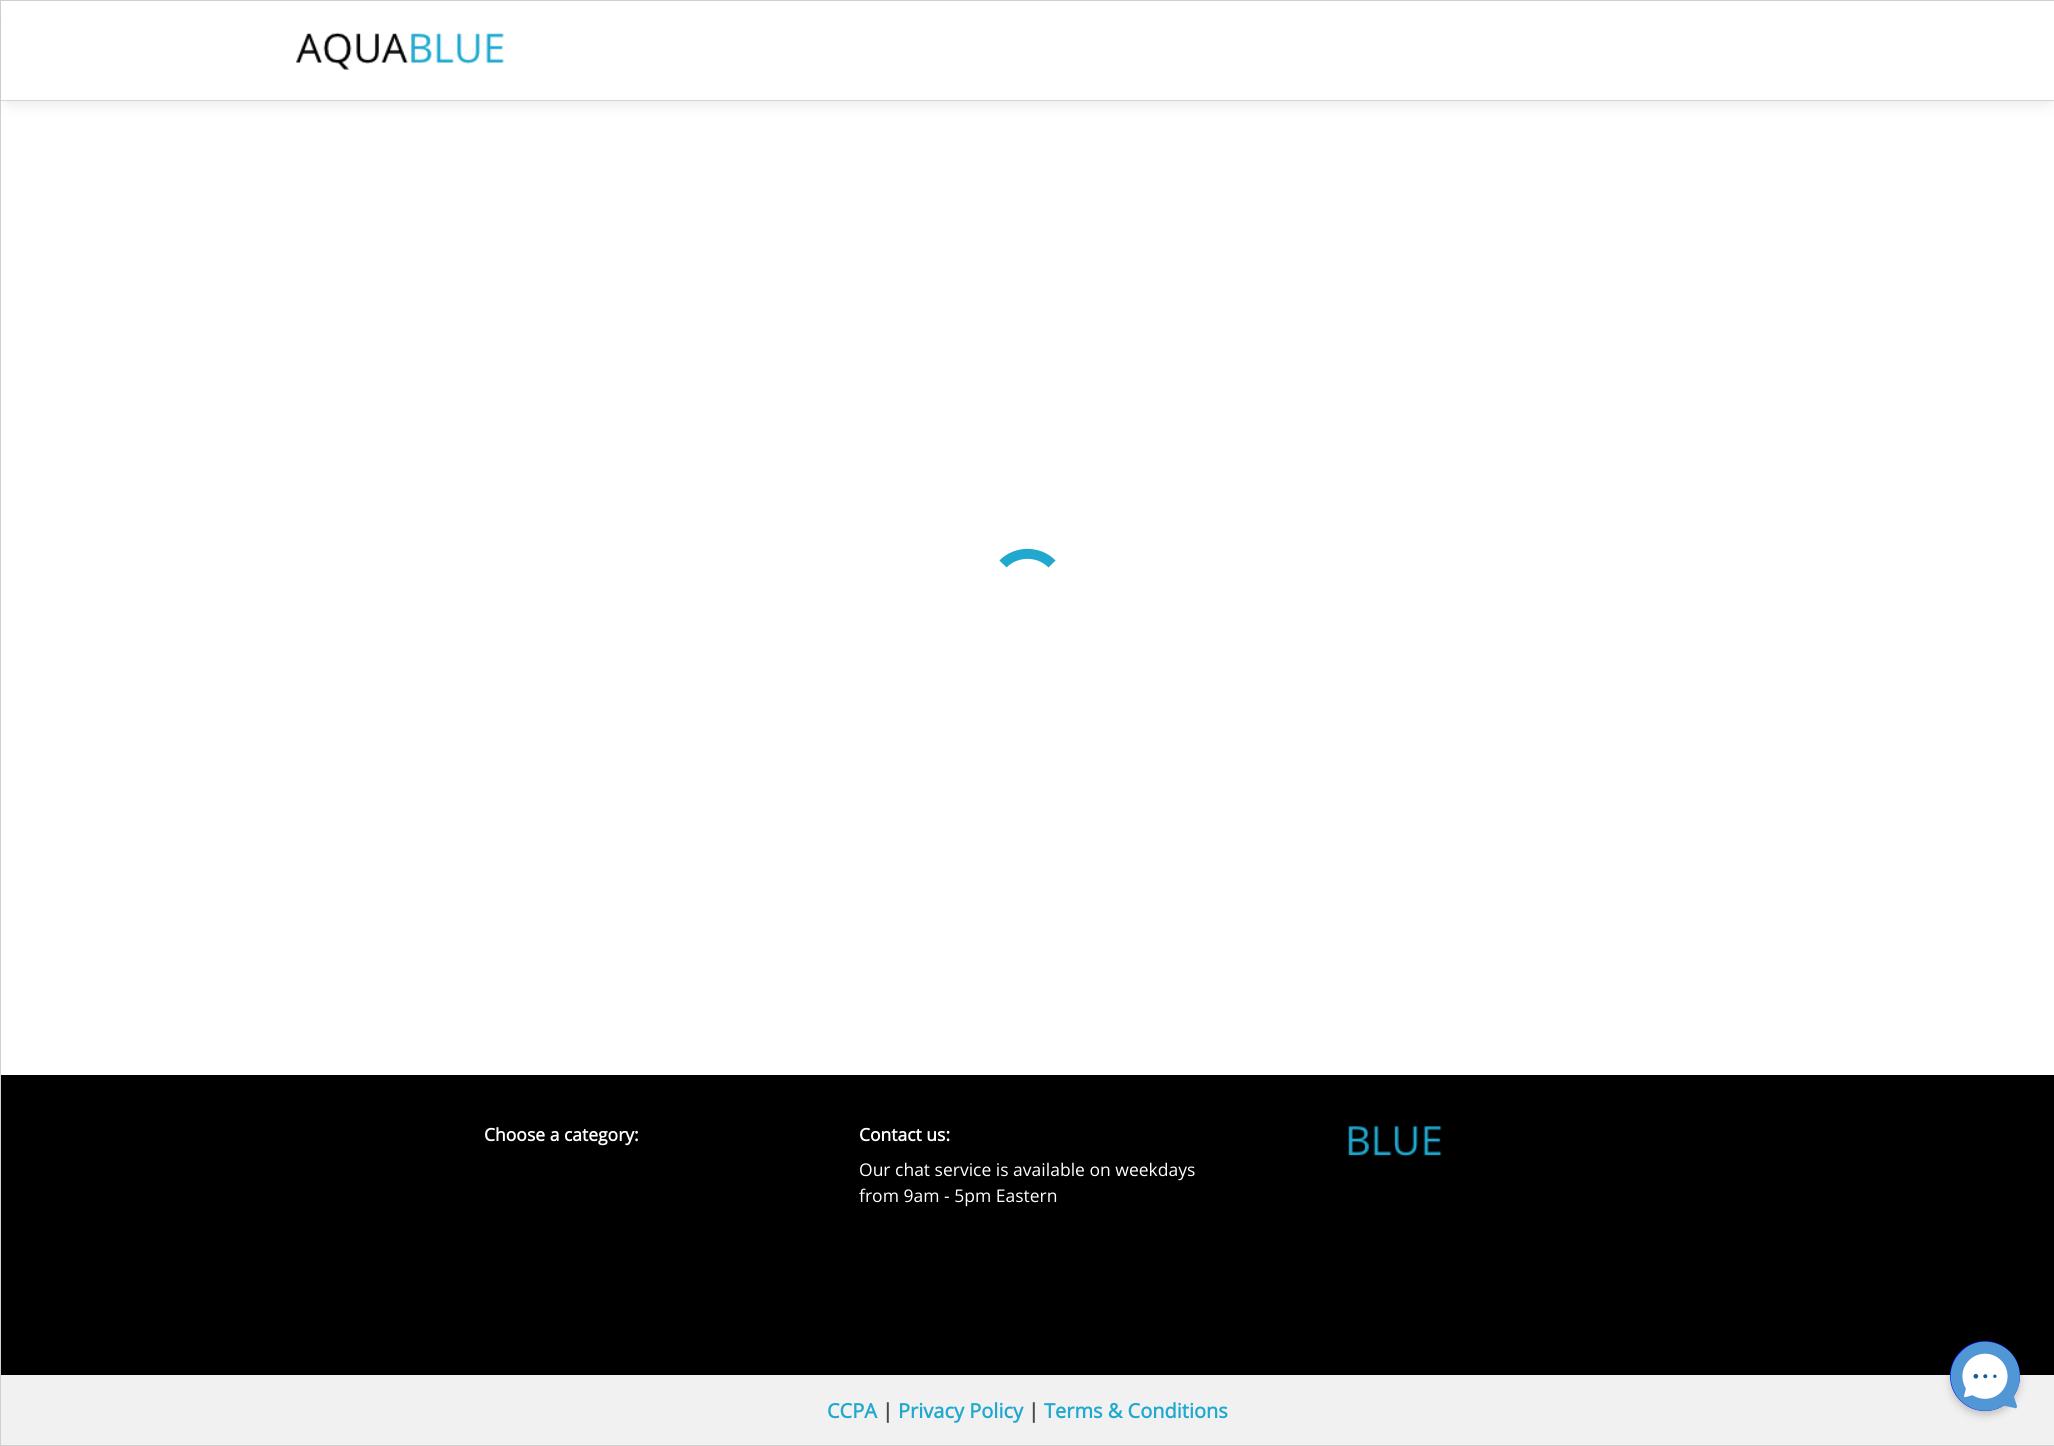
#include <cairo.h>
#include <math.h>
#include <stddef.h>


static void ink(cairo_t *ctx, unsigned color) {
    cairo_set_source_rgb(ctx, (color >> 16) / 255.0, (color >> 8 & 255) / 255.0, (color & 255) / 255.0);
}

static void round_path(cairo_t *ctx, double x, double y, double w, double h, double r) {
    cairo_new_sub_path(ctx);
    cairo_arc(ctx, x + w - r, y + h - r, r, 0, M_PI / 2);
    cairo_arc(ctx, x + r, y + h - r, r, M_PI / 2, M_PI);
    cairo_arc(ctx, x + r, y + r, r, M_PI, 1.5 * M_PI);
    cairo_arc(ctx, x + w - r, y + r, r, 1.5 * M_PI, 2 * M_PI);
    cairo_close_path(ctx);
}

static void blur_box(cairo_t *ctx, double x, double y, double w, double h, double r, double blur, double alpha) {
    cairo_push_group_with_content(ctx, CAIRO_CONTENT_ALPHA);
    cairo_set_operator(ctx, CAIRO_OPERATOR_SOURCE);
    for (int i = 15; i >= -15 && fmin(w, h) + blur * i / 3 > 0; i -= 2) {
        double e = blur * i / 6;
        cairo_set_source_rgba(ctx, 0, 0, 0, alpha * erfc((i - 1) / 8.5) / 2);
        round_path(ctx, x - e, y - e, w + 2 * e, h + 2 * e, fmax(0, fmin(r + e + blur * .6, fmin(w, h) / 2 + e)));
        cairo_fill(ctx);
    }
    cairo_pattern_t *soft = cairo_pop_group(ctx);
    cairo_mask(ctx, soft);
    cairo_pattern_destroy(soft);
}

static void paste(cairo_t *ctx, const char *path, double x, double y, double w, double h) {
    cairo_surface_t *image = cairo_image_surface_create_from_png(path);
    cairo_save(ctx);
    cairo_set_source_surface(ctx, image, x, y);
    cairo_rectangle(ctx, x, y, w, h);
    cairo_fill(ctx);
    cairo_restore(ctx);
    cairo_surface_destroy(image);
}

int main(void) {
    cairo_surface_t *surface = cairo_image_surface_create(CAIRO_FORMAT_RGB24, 2054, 1446);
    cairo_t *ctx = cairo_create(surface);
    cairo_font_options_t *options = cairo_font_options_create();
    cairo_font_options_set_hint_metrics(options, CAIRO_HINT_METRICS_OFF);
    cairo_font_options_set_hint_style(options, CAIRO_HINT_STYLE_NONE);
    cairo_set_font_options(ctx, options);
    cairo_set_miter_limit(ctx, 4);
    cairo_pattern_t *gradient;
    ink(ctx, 0xFFFFFF);
    cairo_paint(ctx);
    cairo_rectangle(ctx, 0.5, 0.5, 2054, 1445);
    ink(ctx, 0xD0D0D0);
    cairo_set_line_width(ctx, 1);
    cairo_stroke(ctx);
    ink(ctx, 0x000000);
    blur_box(ctx, 8, 14, 2040, 87, 0, 9.5, 0.12);
    ink(ctx, 0xFFFFFF);
    cairo_rectangle(ctx, 1, 1, 2053, 99);
    cairo_fill(ctx);
    ink(ctx, 0xD6D6D6);
    cairo_rectangle(ctx, 1, 100, 2053, 1);
    cairo_fill(ctx);
    paste(ctx, "media/1.png", 296, 32, 208, 38);
    cairo_new_path(ctx);
    cairo_move_to(ctx, 1003, 564);
    cairo_curve_to(ctx, 1016, 550.5, 1039, 550.5, 1052, 564);
    cairo_move_to(ctx, 1003, 564);
    cairo_curve_to(ctx, 1016, 550.5, 1039, 550.5, 1052, 564);
    cairo_move_to(ctx, 1003, 564);
    cairo_curve_to(ctx, 1016, 550.5, 1039, 550.5, 1052, 564);
    cairo_move_to(ctx, 1003, 564);
    cairo_curve_to(ctx, 1016, 550.5, 1039, 550.5, 1052, 564);
    ink(ctx, 0x20A8CE);
    cairo_set_line_width(ctx, 10);
    cairo_stroke(ctx);
    ink(ctx, 0x000000);
    cairo_rectangle(ctx, 1, 1075, 2053, 300);
    cairo_fill(ctx);
    cairo_select_font_face(ctx, "Open Sans", CAIRO_FONT_SLANT_NORMAL, CAIRO_FONT_WEIGHT_BOLD);
    cairo_set_font_size(ctx, 17.5);
    ink(ctx, 0xFFFFFF);
    cairo_move_to(ctx, 484, 1141);
    cairo_show_text(ctx, "Choose a category:");
    cairo_move_to(ctx, 859, 1141);
    cairo_show_text(ctx, "Contact us:");
    cairo_select_font_face(ctx, "Open Sans", CAIRO_FONT_SLANT_NORMAL, CAIRO_FONT_WEIGHT_NORMAL);
    cairo_move_to(ctx, 859, 1176);
    cairo_show_text(ctx, "Our chat service is available on weekdays");
    cairo_move_to(ctx, 859, 1202);
    cairo_show_text(ctx, "from 9am - 5pm Eastern");
    paste(ctx, "media/2.png", 1348, 1126, 94, 31);
    ink(ctx, 0xF1F1F1);
    cairo_rectangle(ctx, 1, 1375, 2053, 70);
    cairo_fill(ctx);
    cairo_select_font_face(ctx, "Open Sans", CAIRO_FONT_SLANT_NORMAL, CAIRO_FONT_WEIGHT_BOLD);
    cairo_set_font_size(ctx, 20);
    ink(ctx, 0x20A8CE);
    cairo_move_to(ctx, 827, 1418);
    cairo_show_text(ctx, "CCPA");
    ink(ctx, 0x484848);
    cairo_move_to(ctx, 882, 1418);
    cairo_show_text(ctx, "|");
    ink(ctx, 0x20A8CE);
    cairo_move_to(ctx, 898, 1418);
    cairo_show_text(ctx, "Privacy Policy");
    ink(ctx, 0x484848);
    cairo_move_to(ctx, 1028, 1418);
    cairo_show_text(ctx, "|");
    ink(ctx, 0x20A8CE);
    cairo_move_to(ctx, 1044, 1418);
    cairo_show_text(ctx, "Terms & Conditions");
    ink(ctx, 0x000000);
    blur_box(ctx, 1950, 1345, 70, 70, 35, 4, 0.2);
    gradient = cairo_pattern_create_linear(1950, 1411, 2020, 1341);
    cairo_pattern_add_color_stop_rgba(gradient, 0, 0, 0.09, 0.933, 1);
    cairo_pattern_add_color_stop_rgba(gradient, 1, 0, 0.086, 0.867, 1);
    cairo_set_source(ctx, gradient);
    cairo_pattern_destroy(gradient);
    cairo_arc(ctx, 1985, 1376, 35, 0, 2 * M_PI);
    cairo_fill(ctx);
    ink(ctx, 0x5197D6);
    cairo_new_path(ctx);
    cairo_move_to(ctx, 2010, 1352);
    cairo_curve_to(ctx, 1996, 1338, 1973, 1338, 1960, 1353);
    cairo_curve_to(ctx, 1947, 1366, 1948, 1387, 1960, 1400);
    cairo_curve_to(ctx, 1972, 1412, 1989, 1414, 2003, 1406);
    cairo_curve_to(ctx, 2003, 1406, 2004, 1405, 2005, 1406);
    cairo_line_to(ctx, 2015, 1408);
    cairo_curve_to(ctx, 2016, 1409, 2017, 1408, 2017, 1406);
    cairo_line_to(ctx, 2014, 1397);
    cairo_curve_to(ctx, 2014, 1396, 2014, 1395, 2015, 1394);
    cairo_curve_to(ctx, 2023, 1381, 2021, 1363, 2010, 1352);
    cairo_close_path(ctx);
    cairo_fill(ctx);
    paste(ctx, "media/3.png", 1962, 1353, 46, 46);
    paste(ctx, "media/4.png", 1973, 1373, 24, 6);
    cairo_surface_write_to_png(surface, "image.png");
    cairo_font_options_destroy(options);
    cairo_destroy(ctx);
    cairo_surface_destroy(surface);
    return 0;
}
